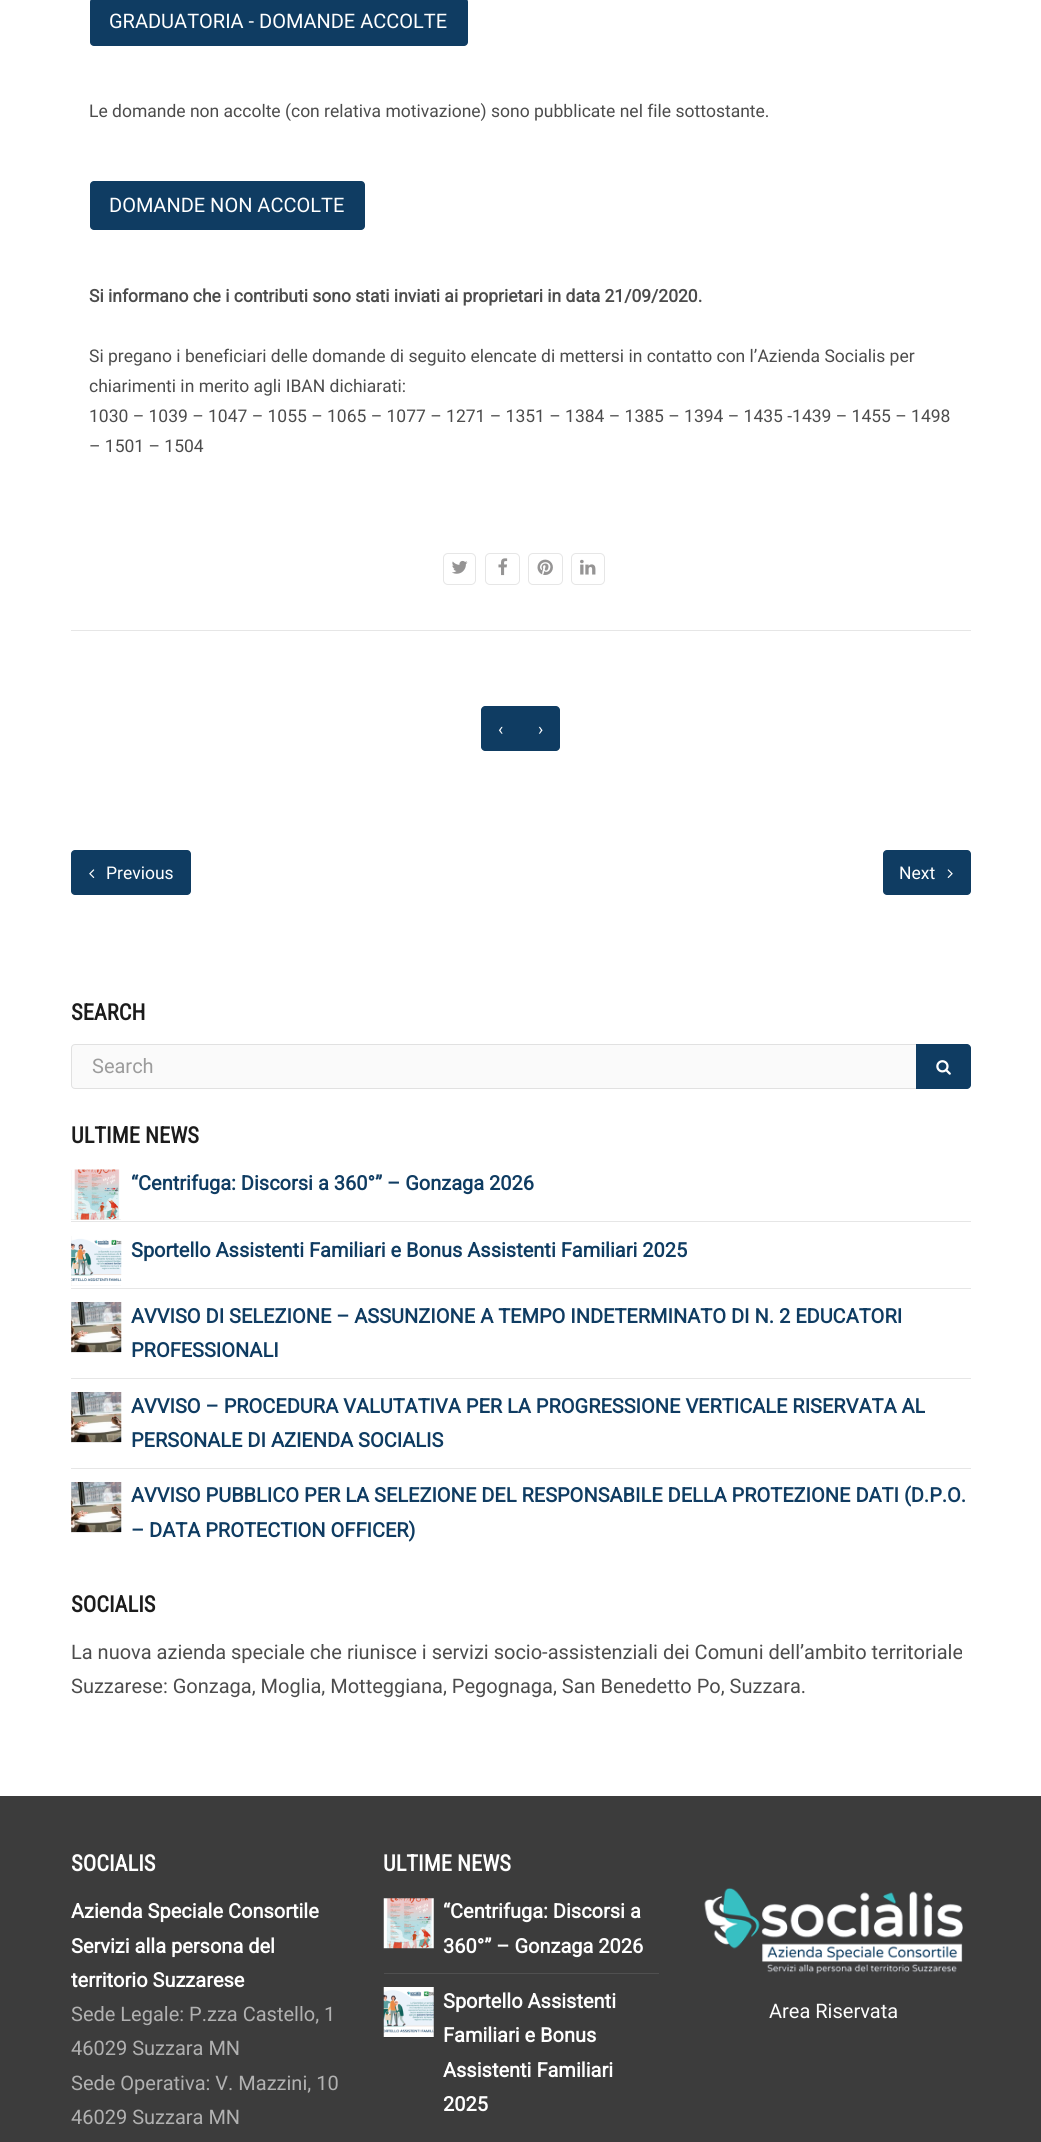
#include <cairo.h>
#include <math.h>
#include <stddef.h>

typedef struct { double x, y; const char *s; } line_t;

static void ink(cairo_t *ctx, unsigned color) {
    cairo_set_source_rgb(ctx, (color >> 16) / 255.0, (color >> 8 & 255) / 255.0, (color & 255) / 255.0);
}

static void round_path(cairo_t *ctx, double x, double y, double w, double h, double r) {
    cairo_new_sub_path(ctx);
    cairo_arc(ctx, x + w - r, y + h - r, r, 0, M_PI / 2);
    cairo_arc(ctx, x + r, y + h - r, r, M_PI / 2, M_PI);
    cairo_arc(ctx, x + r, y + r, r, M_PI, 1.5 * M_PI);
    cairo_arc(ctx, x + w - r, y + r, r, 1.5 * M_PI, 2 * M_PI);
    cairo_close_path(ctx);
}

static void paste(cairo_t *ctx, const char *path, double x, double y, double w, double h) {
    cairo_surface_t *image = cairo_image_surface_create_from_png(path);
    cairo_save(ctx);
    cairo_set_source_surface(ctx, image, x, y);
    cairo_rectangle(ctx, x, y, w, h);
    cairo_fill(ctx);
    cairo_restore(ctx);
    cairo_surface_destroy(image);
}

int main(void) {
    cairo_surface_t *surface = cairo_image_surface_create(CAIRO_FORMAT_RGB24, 1041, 2142);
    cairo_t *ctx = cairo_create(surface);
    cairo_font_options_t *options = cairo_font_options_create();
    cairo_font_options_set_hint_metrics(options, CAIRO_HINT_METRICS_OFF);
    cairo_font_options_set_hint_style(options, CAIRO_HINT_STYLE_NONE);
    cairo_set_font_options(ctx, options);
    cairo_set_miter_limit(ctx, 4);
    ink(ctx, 0xFFFFFF);
    cairo_paint(ctx);
    ink(ctx, 0x0F3C62);
    round_path(ctx, 90, -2, 378, 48, 4);
    cairo_fill(ctx);
    cairo_select_font_face(ctx, "Roboto", CAIRO_FONT_SLANT_NORMAL, CAIRO_FONT_WEIGHT_NORMAL);
    cairo_set_font_size(ctx, 20);
    ink(ctx, 0xFFFFFF);
    cairo_move_to(ctx, 109, 28);
    cairo_show_text(ctx, "GRADUATORIA - DOMANDE ACCOLTE");
    cairo_set_font_size(ctx, 17.5);
    ink(ctx, 0x4C4C4C);
    cairo_move_to(ctx, 89, 117);
    cairo_show_text(ctx, "Le domande non accolte (con relativa motivazione) sono pubblicate nel file sottostante.");
    ink(ctx, 0x0F3C62);
    round_path(ctx, 90, 181, 275, 49, 4);
    cairo_fill(ctx);
    cairo_set_font_size(ctx, 20);
    ink(ctx, 0xFFFFFF);
    cairo_move_to(ctx, 109, 212);
    cairo_show_text(ctx, "DOMANDE NON ACCOLTE");
    cairo_select_font_face(ctx, "Roboto", CAIRO_FONT_SLANT_NORMAL, CAIRO_FONT_WEIGHT_BOLD);
    cairo_set_font_size(ctx, 17.5);
    ink(ctx, 0x4C4C4C);
    cairo_move_to(ctx, 89, 302);
    cairo_show_text(ctx, "Si informano che i contributi sono stati inviati ai proprietari in data 21/09/2020.");
    cairo_select_font_face(ctx, "Roboto", CAIRO_FONT_SLANT_NORMAL, CAIRO_FONT_WEIGHT_NORMAL);
    {
        static const line_t items[] = {
            {89, 362, "Si pregano i beneficiari delle domande di seguito elencate di mettersi in contatto con l’Azienda Socialis per"},
            {89, 392, "chiarimenti in merito agli IBAN dichiarati:"},
            {89, 422, "1030 – 1039 – 1047 – 1055 – 1065 – 1077 – 1271 – 1351 – 1384 – 1385 – 1394 – 1435 -1439 – 1455 – 1498"},
            {89, 452, "– 1501 – 1504"},
        };
        for (size_t i = 0; i < sizeof items / sizeof *items; i++) {
            cairo_move_to(ctx, items[i].x, items[i].y);
            cairo_show_text(ctx, items[i].s);
        }
    }
    round_path(ctx, 443.5, 553.5, 32, 31, 4.5);
    ink(ctx, 0xE6E6E6);
    cairo_set_line_width(ctx, 1);
    cairo_stroke(ctx);
    paste(ctx, "media/1.png", 452, 560, 16, 14);
    round_path(ctx, 485.5, 553.5, 34, 31, 4.5);
    cairo_stroke(ctx);
    paste(ctx, "media/2.png", 498, 558, 10, 18);
    round_path(ctx, 528.5, 553.5, 34, 31, 4.5);
    cairo_stroke(ctx);
    paste(ctx, "media/3.png", 537, 559, 16, 16);
    round_path(ctx, 571.5, 553.5, 33, 31, 4.5);
    cairo_stroke(ctx);
    paste(ctx, "media/4.png", 580, 559, 16, 16);
    cairo_rectangle(ctx, 71, 630, 900, 1);
    cairo_fill(ctx);
    ink(ctx, 0x0F3C62);
    cairo_new_path(ctx);
    cairo_move_to(ctx, 485, 706);
    cairo_line_to(ctx, 521, 706);
    cairo_line_to(ctx, 521, 751);
    cairo_line_to(ctx, 485, 751);
    cairo_curve_to(ctx, 483, 751, 481, 749, 481, 747);
    cairo_line_to(ctx, 481, 710);
    cairo_curve_to(ctx, 481, 708, 483, 706, 485, 706);
    cairo_close_path(ctx);
    cairo_fill(ctx);
    ink(ctx, 0xFFFFFF);
    cairo_move_to(ctx, 498, 735);
    cairo_show_text(ctx, "‹");
    ink(ctx, 0x0F3C62);
    cairo_new_path(ctx);
    cairo_move_to(ctx, 520, 706);
    cairo_line_to(ctx, 556, 706);
    cairo_curve_to(ctx, 558, 706, 560, 708, 560, 710);
    cairo_line_to(ctx, 560, 747);
    cairo_curve_to(ctx, 560, 749, 558, 751, 556, 751);
    cairo_line_to(ctx, 520, 751);
    cairo_close_path(ctx);
    cairo_fill(ctx);
    ink(ctx, 0xFFFFFF);
    cairo_move_to(ctx, 538, 735);
    cairo_show_text(ctx, "›");
    ink(ctx, 0x0F3C62);
    round_path(ctx, 71, 850, 120, 45, 4);
    cairo_fill(ctx);
    paste(ctx, "media/5.png", 89, 869, 6, 9);
    ink(ctx, 0xFFFFFF);
    cairo_move_to(ctx, 106, 879);
    cairo_show_text(ctx, "Previous");
    ink(ctx, 0x0F3C62);
    round_path(ctx, 883, 850, 88, 45, 4);
    cairo_fill(ctx);
    ink(ctx, 0xFFFFFF);
    cairo_move_to(ctx, 899, 879);
    cairo_show_text(ctx, "Next");
    paste(ctx, "media/6.png", 947, 869, 6, 9);
    cairo_select_font_face(ctx, "Roboto Condensed", CAIRO_FONT_SLANT_NORMAL, CAIRO_FONT_WEIGHT_BOLD);
    cairo_set_font_size(ctx, 22.5);
    ink(ctx, 0x1C1C1C);
    cairo_move_to(ctx, 71, 1020);
    cairo_show_text(ctx, "SEARCH");
    ink(ctx, 0xFAFAFA);
    cairo_new_path(ctx);
    cairo_move_to(ctx, 75, 1044.5);
    cairo_line_to(ctx, 917.5, 1044.5);
    cairo_line_to(ctx, 917.5, 1088.5);
    cairo_line_to(ctx, 75, 1088.5);
    cairo_curve_to(ctx, 73, 1088.5, 71.5, 1087, 71.5, 1085);
    cairo_line_to(ctx, 71.5, 1048);
    cairo_curve_to(ctx, 71.5, 1046, 73, 1044.5, 75, 1044.5);
    cairo_close_path(ctx);
    cairo_fill_preserve(ctx);
    ink(ctx, 0xE1E1E1);
    cairo_stroke(ctx);
    cairo_select_font_face(ctx, "Roboto", CAIRO_FONT_SLANT_NORMAL, CAIRO_FONT_WEIGHT_NORMAL);
    cairo_set_font_size(ctx, 20);
    ink(ctx, 0x9C9C9C);
    cairo_move_to(ctx, 92, 1073);
    cairo_show_text(ctx, "Search");
    ink(ctx, 0x0F3C62);
    cairo_new_path(ctx);
    cairo_move_to(ctx, 916, 1044);
    cairo_line_to(ctx, 967, 1044);
    cairo_curve_to(ctx, 969, 1044, 971, 1046, 971, 1048);
    cairo_line_to(ctx, 971, 1085);
    cairo_curve_to(ctx, 971, 1087, 969, 1089, 967, 1089);
    cairo_line_to(ctx, 916, 1089);
    cairo_close_path(ctx);
    cairo_fill(ctx);
    paste(ctx, "media/7.png", 936, 1060, 15, 15);
    cairo_select_font_face(ctx, "Roboto Condensed", CAIRO_FONT_SLANT_NORMAL, CAIRO_FONT_WEIGHT_BOLD);
    cairo_set_font_size(ctx, 22.5);
    ink(ctx, 0x1C1C1C);
    cairo_move_to(ctx, 71, 1143);
    cairo_show_text(ctx, "ULTIME NEWS");
    ink(ctx, 0xE6E6E6);
    cairo_rectangle(ctx, 71, 1221, 900, 1);
    cairo_fill(ctx);
    cairo_rectangle(ctx, 71, 1170, 50, 50);
    cairo_fill(ctx);
    paste(ctx, "media/8.png", 71, 1169, 50, 51);
    cairo_select_font_face(ctx, "Roboto", CAIRO_FONT_SLANT_NORMAL, CAIRO_FONT_WEIGHT_BOLD);
    cairo_set_font_size(ctx, 20);
    ink(ctx, 0x0F3C62);
    cairo_move_to(ctx, 131, 1190);
    cairo_show_text(ctx, "“Centrifuga: Discorsi a 360°” – Gonzaga 2026");
    ink(ctx, 0xE6E6E6);
    cairo_rectangle(ctx, 71, 1288, 900, 1);
    cairo_fill(ctx);
    cairo_rectangle(ctx, 71, 1236, 50, 50);
    cairo_fill(ctx);
    paste(ctx, "media/9.png", 71, 1236, 51, 50);
    ink(ctx, 0x0F3C62);
    cairo_move_to(ctx, 131, 1257);
    cairo_show_text(ctx, "Sportello Assistenti Familiari e Bonus Assistenti Familiari 2025");
    ink(ctx, 0xE6E6E6);
    cairo_rectangle(ctx, 71, 1378, 900, 1);
    cairo_fill(ctx);
    cairo_rectangle(ctx, 71, 1303, 50, 50);
    cairo_fill(ctx);
    paste(ctx, "media/10.png", 71, 1302, 51, 50);
    ink(ctx, 0x0F3C62);
    cairo_move_to(ctx, 131, 1323);
    cairo_show_text(ctx, "AVVISO DI SELEZIONE – ASSUNZIONE A TEMPO INDETERMINATO DI N. 2 EDUCATORI");
    cairo_move_to(ctx, 131, 1357);
    cairo_show_text(ctx, "PROFESSIONALI");
    ink(ctx, 0xE6E6E6);
    cairo_rectangle(ctx, 71, 1468, 900, 1);
    cairo_fill(ctx);
    cairo_rectangle(ctx, 71, 1393, 50, 50);
    cairo_fill(ctx);
    paste(ctx, "media/10.png", 71, 1392, 51, 50);
    ink(ctx, 0x0F3C62);
    cairo_move_to(ctx, 131, 1413);
    cairo_show_text(ctx, "AVVISO – PROCEDURA VALUTATIVA PER LA PROGRESSIONE VERTICALE RISERVATA AL");
    cairo_move_to(ctx, 131, 1447);
    cairo_show_text(ctx, "PERSONALE DI AZIENDA SOCIALIS");
    ink(ctx, 0xE6E6E6);
    cairo_rectangle(ctx, 71, 1483, 50, 50);
    cairo_fill(ctx);
    paste(ctx, "media/10.png", 71, 1482, 51, 50);
    ink(ctx, 0x0F3C62);
    cairo_move_to(ctx, 131, 1502);
    cairo_show_text(ctx, "AVVISO PUBBLICO PER LA SELEZIONE DEL RESPONSABILE DELLA PROTEZIONE DATI (D.P.O.");
    cairo_move_to(ctx, 131, 1537);
    cairo_show_text(ctx, "– DATA PROTECTION OFFICER)");
    cairo_select_font_face(ctx, "Roboto Condensed", CAIRO_FONT_SLANT_NORMAL, CAIRO_FONT_WEIGHT_BOLD);
    cairo_set_font_size(ctx, 22.5);
    ink(ctx, 0x1C1C1C);
    cairo_move_to(ctx, 71, 1612);
    cairo_show_text(ctx, "SOCIALIS");
    cairo_select_font_face(ctx, "Roboto", CAIRO_FONT_SLANT_NORMAL, CAIRO_FONT_WEIGHT_NORMAL);
    cairo_set_font_size(ctx, 20);
    ink(ctx, 0x4C4C4C);
    cairo_move_to(ctx, 71, 1659);
    cairo_show_text(ctx, "La nuova azienda speciale che riunisce i servizi socio-assistenziali dei Comuni dell’ambito territoriale");
    cairo_move_to(ctx, 71, 1693);
    cairo_show_text(ctx, "Suzzarese: Gonzaga, Moglia, Motteggiana, Pegognaga, San Benedetto Po, Suzzara.");
    ink(ctx, 0x3C3C3C);
    cairo_rectangle(ctx, 0, 1796, 1041, 346);
    cairo_fill(ctx);
    cairo_select_font_face(ctx, "Roboto Condensed", CAIRO_FONT_SLANT_NORMAL, CAIRO_FONT_WEIGHT_BOLD);
    cairo_set_font_size(ctx, 22.5);
    ink(ctx, 0xFFFFFF);
    cairo_move_to(ctx, 71, 1871);
    cairo_show_text(ctx, "SOCIALIS");
    cairo_select_font_face(ctx, "Roboto", CAIRO_FONT_SLANT_NORMAL, CAIRO_FONT_WEIGHT_BOLD);
    cairo_set_font_size(ctx, 20);
    {
        static const line_t items[] = {
            {71, 1918, "Azienda Speciale Consortile"},
            {71, 1953, "Servizi alla persona del"},
            {71, 1987, "territorio Suzzarese"},
        };
        for (size_t i = 0; i < sizeof items / sizeof *items; i++) {
            cairo_move_to(ctx, items[i].x, items[i].y);
            cairo_show_text(ctx, items[i].s);
        }
    }
    cairo_select_font_face(ctx, "Roboto", CAIRO_FONT_SLANT_NORMAL, CAIRO_FONT_WEIGHT_NORMAL);
    ink(ctx, 0xB1B1B1);
    {
        static const line_t items[] = {
            {71, 2021, "Sede Legale: P.zza Castello, 1"},
            {71, 2055, "46029 Suzzara MN"},
            {71, 2090, "Sede Operativa: V. Mazzini, 10"},
            {71, 2124, "46029 Suzzara MN"},
        };
        for (size_t i = 0; i < sizeof items / sizeof *items; i++) {
            cairo_move_to(ctx, items[i].x, items[i].y);
            cairo_show_text(ctx, items[i].s);
        }
    }
    cairo_select_font_face(ctx, "Roboto Condensed", CAIRO_FONT_SLANT_NORMAL, CAIRO_FONT_WEIGHT_BOLD);
    cairo_set_font_size(ctx, 22.5);
    ink(ctx, 0xFFFFFF);
    cairo_move_to(ctx, 383, 1871);
    cairo_show_text(ctx, "ULTIME NEWS");
    ink(ctx, 0x505050);
    cairo_rectangle(ctx, 384, 1973, 275, 1);
    cairo_fill(ctx);
    ink(ctx, 0x363636);
    cairo_rectangle(ctx, 384, 1899, 50, 50);
    cairo_fill(ctx);
    paste(ctx, "media/11.png", 383, 1898, 51, 51);
    cairo_select_font_face(ctx, "Roboto", CAIRO_FONT_SLANT_NORMAL, CAIRO_FONT_WEIGHT_BOLD);
    cairo_set_font_size(ctx, 20);
    ink(ctx, 0xFFFFFF);
    cairo_move_to(ctx, 443, 1918);
    cairo_show_text(ctx, "“Centrifuga: Discorsi a");
    cairo_move_to(ctx, 443, 1953);
    cairo_show_text(ctx, "360°” – Gonzaga 2026");
    ink(ctx, 0x363636);
    cairo_rectangle(ctx, 384, 1988, 50, 50);
    cairo_fill(ctx);
    paste(ctx, "media/12.png", 383, 1987, 51, 50);
    ink(ctx, 0xFFFFFF);
    {
        static const line_t items[] = {
            {443, 2008, "Sportello Assistenti"},
            {443, 2042, "Familiari e Bonus"},
            {443, 2077, "Assistenti Familiari"},
            {443, 2111, "2025"},
        };
        for (size_t i = 0; i < sizeof items / sizeof *items; i++) {
            cairo_move_to(ctx, items[i].x, items[i].y);
            cairo_show_text(ctx, items[i].s);
        }
    }
    paste(ctx, "media/13.png", 704, 1888, 259, 86);
    cairo_select_font_face(ctx, "Roboto", CAIRO_FONT_SLANT_NORMAL, CAIRO_FONT_WEIGHT_NORMAL);
    cairo_move_to(ctx, 769, 2018);
    cairo_show_text(ctx, "Area Riservata");
    cairo_surface_write_to_png(surface, "image.png");
    cairo_font_options_destroy(options);
    cairo_destroy(ctx);
    cairo_surface_destroy(surface);
    return 0;
}
